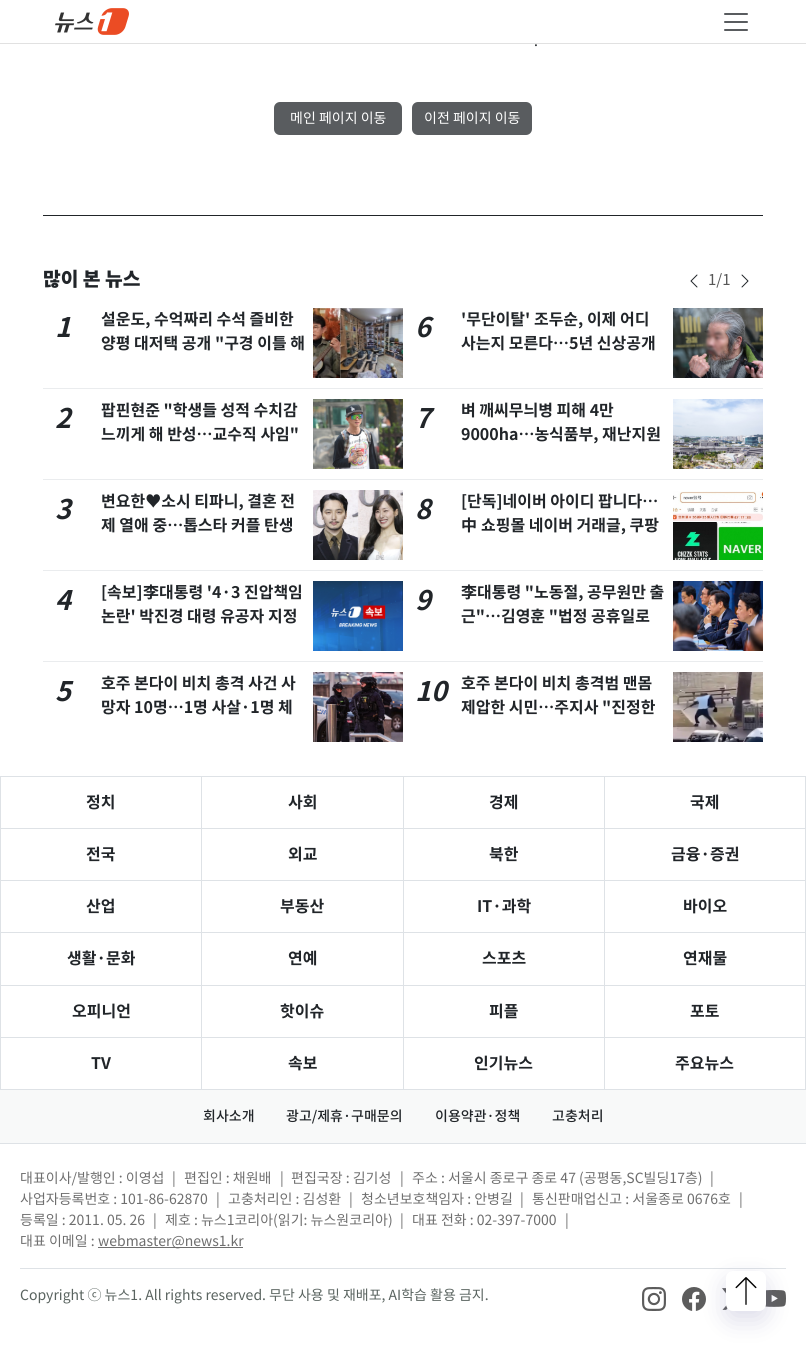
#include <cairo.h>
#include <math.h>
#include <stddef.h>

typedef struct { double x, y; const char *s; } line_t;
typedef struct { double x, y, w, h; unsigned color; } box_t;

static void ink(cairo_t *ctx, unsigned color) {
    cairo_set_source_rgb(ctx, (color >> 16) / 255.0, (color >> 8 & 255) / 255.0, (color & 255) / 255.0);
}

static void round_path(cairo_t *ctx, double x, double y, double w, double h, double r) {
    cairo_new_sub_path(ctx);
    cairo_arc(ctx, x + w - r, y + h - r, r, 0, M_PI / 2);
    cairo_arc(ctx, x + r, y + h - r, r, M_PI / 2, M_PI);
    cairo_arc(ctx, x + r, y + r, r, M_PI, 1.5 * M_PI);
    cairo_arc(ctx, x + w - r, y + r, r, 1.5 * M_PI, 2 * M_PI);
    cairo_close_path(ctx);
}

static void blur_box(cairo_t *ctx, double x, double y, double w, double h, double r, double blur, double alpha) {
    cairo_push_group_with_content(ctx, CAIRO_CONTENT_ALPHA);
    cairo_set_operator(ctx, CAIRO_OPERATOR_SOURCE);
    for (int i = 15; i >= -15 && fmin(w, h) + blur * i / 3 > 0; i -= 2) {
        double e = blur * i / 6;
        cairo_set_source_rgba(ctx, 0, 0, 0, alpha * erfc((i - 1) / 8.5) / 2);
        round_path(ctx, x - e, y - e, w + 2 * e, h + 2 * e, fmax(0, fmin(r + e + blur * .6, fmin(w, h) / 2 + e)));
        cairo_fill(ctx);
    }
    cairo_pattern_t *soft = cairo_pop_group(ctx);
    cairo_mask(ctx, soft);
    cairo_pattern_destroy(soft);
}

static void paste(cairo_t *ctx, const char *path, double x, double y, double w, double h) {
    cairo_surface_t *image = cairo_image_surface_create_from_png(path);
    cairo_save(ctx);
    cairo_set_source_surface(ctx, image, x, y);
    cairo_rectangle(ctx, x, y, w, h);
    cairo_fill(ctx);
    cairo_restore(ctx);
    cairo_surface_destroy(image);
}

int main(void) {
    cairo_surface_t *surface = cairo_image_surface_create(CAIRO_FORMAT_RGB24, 806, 1351);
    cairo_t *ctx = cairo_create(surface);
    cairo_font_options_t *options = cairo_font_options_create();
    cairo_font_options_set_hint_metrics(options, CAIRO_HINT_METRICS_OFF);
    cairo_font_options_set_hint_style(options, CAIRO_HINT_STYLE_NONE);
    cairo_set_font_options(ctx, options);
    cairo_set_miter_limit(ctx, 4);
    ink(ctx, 0xFFFFFF);
    cairo_paint(ctx);
    ink(ctx, 0xE1E1E1);
    cairo_rectangle(ctx, 0, 43, 806, 1);
    cairo_fill(ctx);
    paste(ctx, "media/1.png", 55, 8, 74, 27);
    paste(ctx, "media/2.png", 724, 13, 24, 18);
    ink(ctx, 0x212529);
    cairo_rectangle(ctx, 43, 215, 720, 1);
    cairo_fill(ctx);
    cairo_select_font_face(ctx, "Noto Sans KR", CAIRO_FONT_SLANT_NORMAL, CAIRO_FONT_WEIGHT_NORMAL);
    cairo_set_font_size(ctx, 14);
    cairo_move_to(ctx, 534, 46);
    cairo_show_text(ctx, ".");
    ink(ctx, 0x595C5F);
    round_path(ctx, 274, 102, 128, 33, 6);
    cairo_fill(ctx);
    ink(ctx, 0xFFFFFF);
    cairo_move_to(ctx, 290, 123);
    cairo_show_text(ctx, "메인 페이지 이동");
    ink(ctx, 0x595C5F);
    round_path(ctx, 412, 102, 120, 33, 6);
    cairo_fill(ctx);
    ink(ctx, 0xFFFFFF);
    cairo_move_to(ctx, 424, 123);
    cairo_show_text(ctx, "이전 페이지 이동");
    cairo_select_font_face(ctx, "Noto Sans KR Black", CAIRO_FONT_SLANT_NORMAL, CAIRO_FONT_WEIGHT_NORMAL);
    cairo_set_font_size(ctx, 19.25);
    ink(ctx, 0x212529);
    cairo_move_to(ctx, 43, 286);
    cairo_show_text(ctx, "많이 본 뉴스");
    paste(ctx, "media/3.png", 690, 274, 8, 14);
    cairo_select_font_face(ctx, "Noto Sans KR", CAIRO_FONT_SLANT_NORMAL, CAIRO_FONT_WEIGHT_NORMAL);
    cairo_set_font_size(ctx, 15);
    ink(ctx, 0x575757);
    cairo_move_to(ctx, 708, 285);
    cairo_show_text(ctx, "1/1");
    paste(ctx, "media/4.png", 741, 274, 8, 14);
    ink(ctx, 0xEAECEE);
    cairo_rectangle(ctx, 43, 388, 720, 1);
    cairo_fill(ctx);
    cairo_select_font_face(ctx, "Noto Sans KR", CAIRO_FONT_SLANT_ITALIC, CAIRO_FONT_WEIGHT_BOLD);
    cairo_set_font_size(ctx, 27);
    ink(ctx, 0x212529);
    cairo_move_to(ctx, 55, 337);
    cairo_show_text(ctx, "1");
    cairo_select_font_face(ctx, "Noto Sans KR", CAIRO_FONT_SLANT_NORMAL, CAIRO_FONT_WEIGHT_BOLD);
    cairo_set_font_size(ctx, 16);
    cairo_move_to(ctx, 101, 325);
    cairo_show_text(ctx, "설운도, 수억짜리 수석 즐비한");
    cairo_move_to(ctx, 101, 349);
    cairo_show_text(ctx, "양평 대저택 공개 \"구경 이틀 해");
    paste(ctx, "media/5.png", 313, 308, 90, 70);
    ink(ctx, 0xEAECEE);
    cairo_rectangle(ctx, 43, 479, 720, 1);
    cairo_fill(ctx);
    cairo_select_font_face(ctx, "Noto Sans KR", CAIRO_FONT_SLANT_ITALIC, CAIRO_FONT_WEIGHT_BOLD);
    cairo_set_font_size(ctx, 27);
    ink(ctx, 0x212529);
    cairo_move_to(ctx, 55, 428);
    cairo_show_text(ctx, "2");
    cairo_select_font_face(ctx, "Noto Sans KR", CAIRO_FONT_SLANT_NORMAL, CAIRO_FONT_WEIGHT_BOLD);
    cairo_set_font_size(ctx, 16);
    cairo_move_to(ctx, 101, 416);
    cairo_show_text(ctx, "팝핀현준 \"학생들 성적 수치감");
    cairo_move_to(ctx, 101, 440);
    cairo_show_text(ctx, "느끼게 해 반성…교수직 사임\"");
    paste(ctx, "media/6.png", 313, 399, 90, 70);
    ink(ctx, 0xEAECEE);
    cairo_rectangle(ctx, 43, 570, 720, 1);
    cairo_fill(ctx);
    cairo_select_font_face(ctx, "Noto Sans KR", CAIRO_FONT_SLANT_ITALIC, CAIRO_FONT_WEIGHT_BOLD);
    cairo_set_font_size(ctx, 27);
    ink(ctx, 0x212529);
    cairo_move_to(ctx, 55, 519);
    cairo_show_text(ctx, "3");
    cairo_select_font_face(ctx, "Noto Sans KR", CAIRO_FONT_SLANT_NORMAL, CAIRO_FONT_WEIGHT_BOLD);
    cairo_set_font_size(ctx, 16);
    cairo_move_to(ctx, 101, 507);
    cairo_show_text(ctx, "변요한♥소시 티파니, 결혼 전");
    cairo_move_to(ctx, 101, 531);
    cairo_show_text(ctx, "제 열애 중…톱스타 커플 탄생");
    paste(ctx, "media/7.png", 313, 490, 90, 70);
    ink(ctx, 0xEAECEE);
    cairo_rectangle(ctx, 43, 661, 720, 1);
    cairo_fill(ctx);
    cairo_select_font_face(ctx, "Noto Sans KR", CAIRO_FONT_SLANT_ITALIC, CAIRO_FONT_WEIGHT_BOLD);
    cairo_set_font_size(ctx, 27);
    ink(ctx, 0x212529);
    cairo_move_to(ctx, 55, 610);
    cairo_show_text(ctx, "4");
    cairo_select_font_face(ctx, "Noto Sans KR", CAIRO_FONT_SLANT_NORMAL, CAIRO_FONT_WEIGHT_BOLD);
    cairo_set_font_size(ctx, 16);
    cairo_move_to(ctx, 101, 598);
    cairo_show_text(ctx, "[속보]");
    cairo_select_font_face(ctx, "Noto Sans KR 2", CAIRO_FONT_SLANT_NORMAL, CAIRO_FONT_WEIGHT_BOLD);
    cairo_move_to(ctx, 143, 598);
    cairo_show_text(ctx, "李");
    cairo_select_font_face(ctx, "Noto Sans KR", CAIRO_FONT_SLANT_NORMAL, CAIRO_FONT_WEIGHT_BOLD);
    cairo_move_to(ctx, 159, 598);
    cairo_show_text(ctx, "대통령 '4·3 진압책임");
    cairo_move_to(ctx, 101, 622);
    cairo_show_text(ctx, "논란' 박진경 대령 유공자 지정");
    paste(ctx, "media/8.png", 313, 581, 90, 70);
    cairo_select_font_face(ctx, "Noto Sans KR", CAIRO_FONT_SLANT_ITALIC, CAIRO_FONT_WEIGHT_BOLD);
    cairo_set_font_size(ctx, 27);
    cairo_move_to(ctx, 55, 701);
    cairo_show_text(ctx, "5");
    cairo_select_font_face(ctx, "Noto Sans KR", CAIRO_FONT_SLANT_NORMAL, CAIRO_FONT_WEIGHT_BOLD);
    cairo_set_font_size(ctx, 16);
    cairo_move_to(ctx, 101, 689);
    cairo_show_text(ctx, "호주 본다이 비치 총격 사건 사");
    cairo_move_to(ctx, 101, 713);
    cairo_show_text(ctx, "망자 10명…1명 사살·1명 체");
    paste(ctx, "media/9.png", 313, 672, 90, 70);
    cairo_select_font_face(ctx, "Noto Sans KR", CAIRO_FONT_SLANT_ITALIC, CAIRO_FONT_WEIGHT_BOLD);
    cairo_set_font_size(ctx, 27);
    cairo_move_to(ctx, 415, 337);
    cairo_show_text(ctx, "6");
    cairo_select_font_face(ctx, "Noto Sans KR", CAIRO_FONT_SLANT_NORMAL, CAIRO_FONT_WEIGHT_BOLD);
    cairo_set_font_size(ctx, 16);
    cairo_move_to(ctx, 461, 325);
    cairo_show_text(ctx, "'무단이탈' 조두순, 이제 어디");
    cairo_move_to(ctx, 461, 349);
    cairo_show_text(ctx, "사는지 모른다…5년 신상공개");
    paste(ctx, "media/10.png", 673, 308, 90, 70);
    cairo_select_font_face(ctx, "Noto Sans KR", CAIRO_FONT_SLANT_ITALIC, CAIRO_FONT_WEIGHT_BOLD);
    cairo_set_font_size(ctx, 27);
    cairo_move_to(ctx, 415, 428);
    cairo_show_text(ctx, "7");
    cairo_select_font_face(ctx, "Noto Sans KR", CAIRO_FONT_SLANT_NORMAL, CAIRO_FONT_WEIGHT_BOLD);
    cairo_set_font_size(ctx, 16);
    cairo_move_to(ctx, 461, 416);
    cairo_show_text(ctx, "벼 깨씨무늬병 피해 4만");
    cairo_move_to(ctx, 461, 440);
    cairo_show_text(ctx, "9000ha…농식품부, 재난지원");
    paste(ctx, "media/11.png", 673, 399, 90, 70);
    cairo_select_font_face(ctx, "Noto Sans KR", CAIRO_FONT_SLANT_ITALIC, CAIRO_FONT_WEIGHT_BOLD);
    cairo_set_font_size(ctx, 27);
    cairo_move_to(ctx, 415, 519);
    cairo_show_text(ctx, "8");
    cairo_select_font_face(ctx, "Noto Sans KR", CAIRO_FONT_SLANT_NORMAL, CAIRO_FONT_WEIGHT_BOLD);
    cairo_set_font_size(ctx, 16);
    cairo_move_to(ctx, 461, 507);
    cairo_show_text(ctx, "[단독]네이버 아이디 팝니다…");
    cairo_select_font_face(ctx, "Noto Sans KR 2", CAIRO_FONT_SLANT_NORMAL, CAIRO_FONT_WEIGHT_BOLD);
    cairo_move_to(ctx, 461, 531);
    cairo_show_text(ctx, "中");
    cairo_select_font_face(ctx, "Noto Sans KR", CAIRO_FONT_SLANT_NORMAL, CAIRO_FONT_WEIGHT_BOLD);
    cairo_move_to(ctx, 481, 531);
    cairo_show_text(ctx, "쇼핑몰 네이버 거래글, 쿠팡");
    paste(ctx, "media/12.png", 673, 491, 90, 69);
    cairo_select_font_face(ctx, "Noto Sans KR", CAIRO_FONT_SLANT_ITALIC, CAIRO_FONT_WEIGHT_BOLD);
    cairo_set_font_size(ctx, 27);
    cairo_move_to(ctx, 415, 610);
    cairo_show_text(ctx, "9");
    cairo_select_font_face(ctx, "Noto Sans KR 2", CAIRO_FONT_SLANT_NORMAL, CAIRO_FONT_WEIGHT_BOLD);
    cairo_set_font_size(ctx, 16);
    cairo_move_to(ctx, 461, 598);
    cairo_show_text(ctx, "李");
    cairo_select_font_face(ctx, "Noto Sans KR", CAIRO_FONT_SLANT_NORMAL, CAIRO_FONT_WEIGHT_BOLD);
    cairo_move_to(ctx, 477, 598);
    cairo_show_text(ctx, "대통령 \"노동절, 공무원만 출");
    cairo_move_to(ctx, 461, 622);
    cairo_show_text(ctx, "근\"…김영훈 \"법정 공휴일로");
    paste(ctx, "media/13.png", 673, 581, 90, 70);
    cairo_select_font_face(ctx, "Noto Sans KR", CAIRO_FONT_SLANT_ITALIC, CAIRO_FONT_WEIGHT_BOLD);
    cairo_set_font_size(ctx, 27);
    cairo_move_to(ctx, 415, 701);
    cairo_show_text(ctx, "10");
    cairo_select_font_face(ctx, "Noto Sans KR", CAIRO_FONT_SLANT_NORMAL, CAIRO_FONT_WEIGHT_BOLD);
    cairo_set_font_size(ctx, 16);
    cairo_move_to(ctx, 461, 689);
    cairo_show_text(ctx, "호주 본다이 비치 총격범 맨몸");
    cairo_move_to(ctx, 461, 713);
    cairo_show_text(ctx, "제압한 시민…주지사 \"진정한");
    paste(ctx, "media/14.png", 673, 672, 90, 70);
    {
        static const box_t items[] = {
            {805, 776, 1, 313, 0xDEE2E6},
            {0, 776, 805, 1, 0xDEE2E6},
            {0, 776, 1, 52, 0xDEE2E6},
        };
        for (size_t i = 0; i < sizeof items / sizeof *items; i++) {
            ink(ctx, items[i].color);
            cairo_rectangle(ctx, items[i].x, items[i].y, items[i].w, items[i].h);
            cairo_fill(ctx);
        }
    }
    ink(ctx, 0x212529);
    cairo_move_to(ctx, 86, 808);
    cairo_show_text(ctx, "정치");
    ink(ctx, 0xDEE2E6);
    cairo_rectangle(ctx, 201, 776, 1, 52);
    cairo_fill(ctx);
    ink(ctx, 0x212529);
    cairo_move_to(ctx, 288, 808);
    cairo_show_text(ctx, "사회");
    ink(ctx, 0xDEE2E6);
    cairo_rectangle(ctx, 403, 776, 1, 52);
    cairo_fill(ctx);
    ink(ctx, 0x212529);
    cairo_move_to(ctx, 489, 808);
    cairo_show_text(ctx, "경제");
    ink(ctx, 0xDEE2E6);
    cairo_rectangle(ctx, 604, 776, 1, 52);
    cairo_fill(ctx);
    ink(ctx, 0x212529);
    cairo_move_to(ctx, 690, 808);
    cairo_show_text(ctx, "국제");
    ink(ctx, 0xDEE2E6);
    cairo_rectangle(ctx, 0, 828, 805, 1);
    cairo_fill(ctx);
    cairo_rectangle(ctx, 0, 828, 1, 52);
    cairo_fill(ctx);
    ink(ctx, 0x212529);
    cairo_move_to(ctx, 86, 860);
    cairo_show_text(ctx, "전국");
    ink(ctx, 0xDEE2E6);
    cairo_rectangle(ctx, 201, 828, 1, 52);
    cairo_fill(ctx);
    ink(ctx, 0x212529);
    cairo_move_to(ctx, 288, 860);
    cairo_show_text(ctx, "외교");
    ink(ctx, 0xDEE2E6);
    cairo_rectangle(ctx, 403, 828, 1, 52);
    cairo_fill(ctx);
    ink(ctx, 0x212529);
    cairo_move_to(ctx, 489, 860);
    cairo_show_text(ctx, "북한");
    ink(ctx, 0xDEE2E6);
    cairo_rectangle(ctx, 604, 828, 1, 52);
    cairo_fill(ctx);
    ink(ctx, 0x212529);
    cairo_move_to(ctx, 671, 860);
    cairo_show_text(ctx, "금융·증권");
    ink(ctx, 0xDEE2E6);
    cairo_rectangle(ctx, 0, 880, 805, 1);
    cairo_fill(ctx);
    cairo_rectangle(ctx, 0, 880, 1, 52);
    cairo_fill(ctx);
    ink(ctx, 0x212529);
    cairo_move_to(ctx, 86, 912);
    cairo_show_text(ctx, "산업");
    ink(ctx, 0xDEE2E6);
    cairo_rectangle(ctx, 201, 880, 1, 52);
    cairo_fill(ctx);
    ink(ctx, 0x212529);
    cairo_move_to(ctx, 280, 912);
    cairo_show_text(ctx, "부동산");
    ink(ctx, 0xDEE2E6);
    cairo_rectangle(ctx, 403, 880, 1, 52);
    cairo_fill(ctx);
    ink(ctx, 0x212529);
    cairo_move_to(ctx, 477, 912);
    cairo_show_text(ctx, "IT·과학");
    ink(ctx, 0xDEE2E6);
    cairo_rectangle(ctx, 604, 880, 1, 52);
    cairo_fill(ctx);
    ink(ctx, 0x212529);
    cairo_move_to(ctx, 683, 912);
    cairo_show_text(ctx, "바이오");
    ink(ctx, 0xDEE2E6);
    cairo_rectangle(ctx, 0, 932, 805, 1);
    cairo_fill(ctx);
    cairo_rectangle(ctx, 0, 932, 1, 53);
    cairo_fill(ctx);
    ink(ctx, 0x212529);
    cairo_move_to(ctx, 67, 964);
    cairo_show_text(ctx, "생활·문화");
    ink(ctx, 0xDEE2E6);
    cairo_rectangle(ctx, 201, 932, 1, 53);
    cairo_fill(ctx);
    ink(ctx, 0x212529);
    cairo_move_to(ctx, 288, 964);
    cairo_show_text(ctx, "연예");
    ink(ctx, 0xDEE2E6);
    cairo_rectangle(ctx, 403, 932, 1, 53);
    cairo_fill(ctx);
    ink(ctx, 0x212529);
    cairo_move_to(ctx, 482, 964);
    cairo_show_text(ctx, "스포츠");
    ink(ctx, 0xDEE2E6);
    cairo_rectangle(ctx, 604, 932, 1, 53);
    cairo_fill(ctx);
    ink(ctx, 0x212529);
    cairo_move_to(ctx, 683, 964);
    cairo_show_text(ctx, "연재물");
    ink(ctx, 0xDEE2E6);
    cairo_rectangle(ctx, 0, 985, 805, 1);
    cairo_fill(ctx);
    cairo_rectangle(ctx, 0, 985, 1, 52);
    cairo_fill(ctx);
    ink(ctx, 0x212529);
    cairo_move_to(ctx, 72, 1017);
    cairo_show_text(ctx, "오피니언");
    ink(ctx, 0xDEE2E6);
    cairo_rectangle(ctx, 201, 985, 1, 52);
    cairo_fill(ctx);
    ink(ctx, 0x212529);
    cairo_move_to(ctx, 280, 1017);
    cairo_show_text(ctx, "핫이슈");
    ink(ctx, 0xDEE2E6);
    cairo_rectangle(ctx, 403, 985, 1, 52);
    cairo_fill(ctx);
    ink(ctx, 0x212529);
    cairo_move_to(ctx, 489, 1017);
    cairo_show_text(ctx, "피플");
    ink(ctx, 0xDEE2E6);
    cairo_rectangle(ctx, 604, 985, 1, 52);
    cairo_fill(ctx);
    ink(ctx, 0x212529);
    cairo_move_to(ctx, 690, 1017);
    cairo_show_text(ctx, "포토");
    ink(ctx, 0xDEE2E6);
    cairo_rectangle(ctx, 0, 1037, 805, 1);
    cairo_fill(ctx);
    cairo_rectangle(ctx, 0, 1037, 1, 52);
    cairo_fill(ctx);
    ink(ctx, 0x212529);
    cairo_move_to(ctx, 91, 1069);
    cairo_show_text(ctx, "TV");
    ink(ctx, 0xDEE2E6);
    cairo_rectangle(ctx, 201, 1037, 1, 52);
    cairo_fill(ctx);
    ink(ctx, 0x212529);
    cairo_move_to(ctx, 288, 1069);
    cairo_show_text(ctx, "속보");
    ink(ctx, 0xDEE2E6);
    cairo_rectangle(ctx, 403, 1037, 1, 52);
    cairo_fill(ctx);
    ink(ctx, 0x212529);
    cairo_move_to(ctx, 474, 1069);
    cairo_show_text(ctx, "인기뉴스");
    ink(ctx, 0xDEE2E6);
    cairo_rectangle(ctx, 604, 1037, 1, 52);
    cairo_fill(ctx);
    ink(ctx, 0x212529);
    cairo_move_to(ctx, 675, 1069);
    cairo_show_text(ctx, "주요뉴스");
    ink(ctx, 0xF8F9F9);
    cairo_rectangle(ctx, 0, 1090, 806, 53);
    cairo_fill(ctx);
    ink(ctx, 0xDEE2E6);
    cairo_rectangle(ctx, 0, 1089, 806, 1);
    cairo_fill(ctx);
    cairo_select_font_face(ctx, "Noto Sans KR Medium", CAIRO_FONT_SLANT_NORMAL, CAIRO_FONT_WEIGHT_NORMAL);
    cairo_set_font_size(ctx, 14);
    ink(ctx, 0x212529);
    {
        static const line_t items[] = {
            {203, 1121, "회사소개"},
            {286, 1121, "광고/제휴·구매문의"},
            {435, 1121, "이용약관·정책"},
            {552, 1121, "고충처리"},
        };
        for (size_t i = 0; i < sizeof items / sizeof *items; i++) {
            cairo_move_to(ctx, items[i].x, items[i].y);
            cairo_show_text(ctx, items[i].s);
        }
    }
    ink(ctx, 0xDEE2E6);
    cairo_rectangle(ctx, 0, 1143, 806, 1);
    cairo_fill(ctx);
    cairo_select_font_face(ctx, "Noto Sans KR", CAIRO_FONT_SLANT_NORMAL, CAIRO_FONT_WEIGHT_NORMAL);
    ink(ctx, 0x6E6E6E);
    {
        static const line_t items[] = {
            {20, 1183, "대표이사/발행인 : 이영섭"},
            {172, 1183, "|"},
            {184, 1183, "편집인 : 채원배"},
            {280, 1183, "|"},
            {291, 1183, "편집국장 : 김기성"},
            {400, 1183, "|"},
            {412, 1183, "주소 : 서울시 종로구 종로 47 (공평동,SC빌딩17층)"},
            {710, 1183, "|"},
            {20, 1204, "사업자등록번호 : 101-86-62870"},
            {216, 1204, "|"},
            {228, 1204, "고충처리인 : 김성환"},
            {349, 1204, "|"},
            {361, 1204, "청소년보호책임자 : 안병길"},
            {520, 1204, "|"},
            {532, 1204, "통신판매업신고 : 서울종로 0676호"},
            {739, 1204, "|"},
            {20, 1225, "등록일 : 2011. 05. 26"},
            {153, 1225, "|"},
            {165, 1225, "제호 : 뉴스1코리아(읽기: 뉴스원코리아)"},
            {400, 1225, "|"},
            {412, 1225, "대표 전화 : 02-397-7000"},
            {565, 1225, "|"},
            {20, 1246, "대표 이메일 :"},
        };
        for (size_t i = 0; i < sizeof items / sizeof *items; i++) {
            cairo_move_to(ctx, items[i].x, items[i].y);
            cairo_show_text(ctx, items[i].s);
        }
    }
    cairo_rectangle(ctx, 98, 1247, 145, 1);
    cairo_fill(ctx);
    cairo_move_to(ctx, 98, 1246);
    cairo_show_text(ctx, "webmaster@news1.kr");
    ink(ctx, 0xDEE2E6);
    cairo_rectangle(ctx, 20, 1268, 766, 1);
    cairo_fill(ctx);
    ink(ctx, 0x59635F);
    cairo_move_to(ctx, 20, 1300);
    cairo_show_text(ctx, "Copyright ⓒ 뉴스1. All rights reserved. 무단 사용 및 재배포, AI학습 활용 금지.");
    paste(ctx, "media/15.png", 642, 1287, 24, 24);
    paste(ctx, "media/16.png", 682, 1287, 24, 24);
    paste(ctx, "media/17.png", 722, 1288, 6, 22);
    paste(ctx, "media/18.png", 765, 1290, 21, 17);
    ink(ctx, 0x8480B1);
    blur_box(ctx, 726, 1280, 40, 40, 7, 12.5, 0.28);
    ink(ctx, 0xFFFFFF);
    round_path(ctx, 726, 1271, 40, 40, 7);
    cairo_fill(ctx);
    paste(ctx, "media/19.png", 735, 1277, 22, 28);
    cairo_surface_write_to_png(surface, "image.png");
    cairo_font_options_destroy(options);
    cairo_destroy(ctx);
    cairo_surface_destroy(surface);
    return 0;
}
